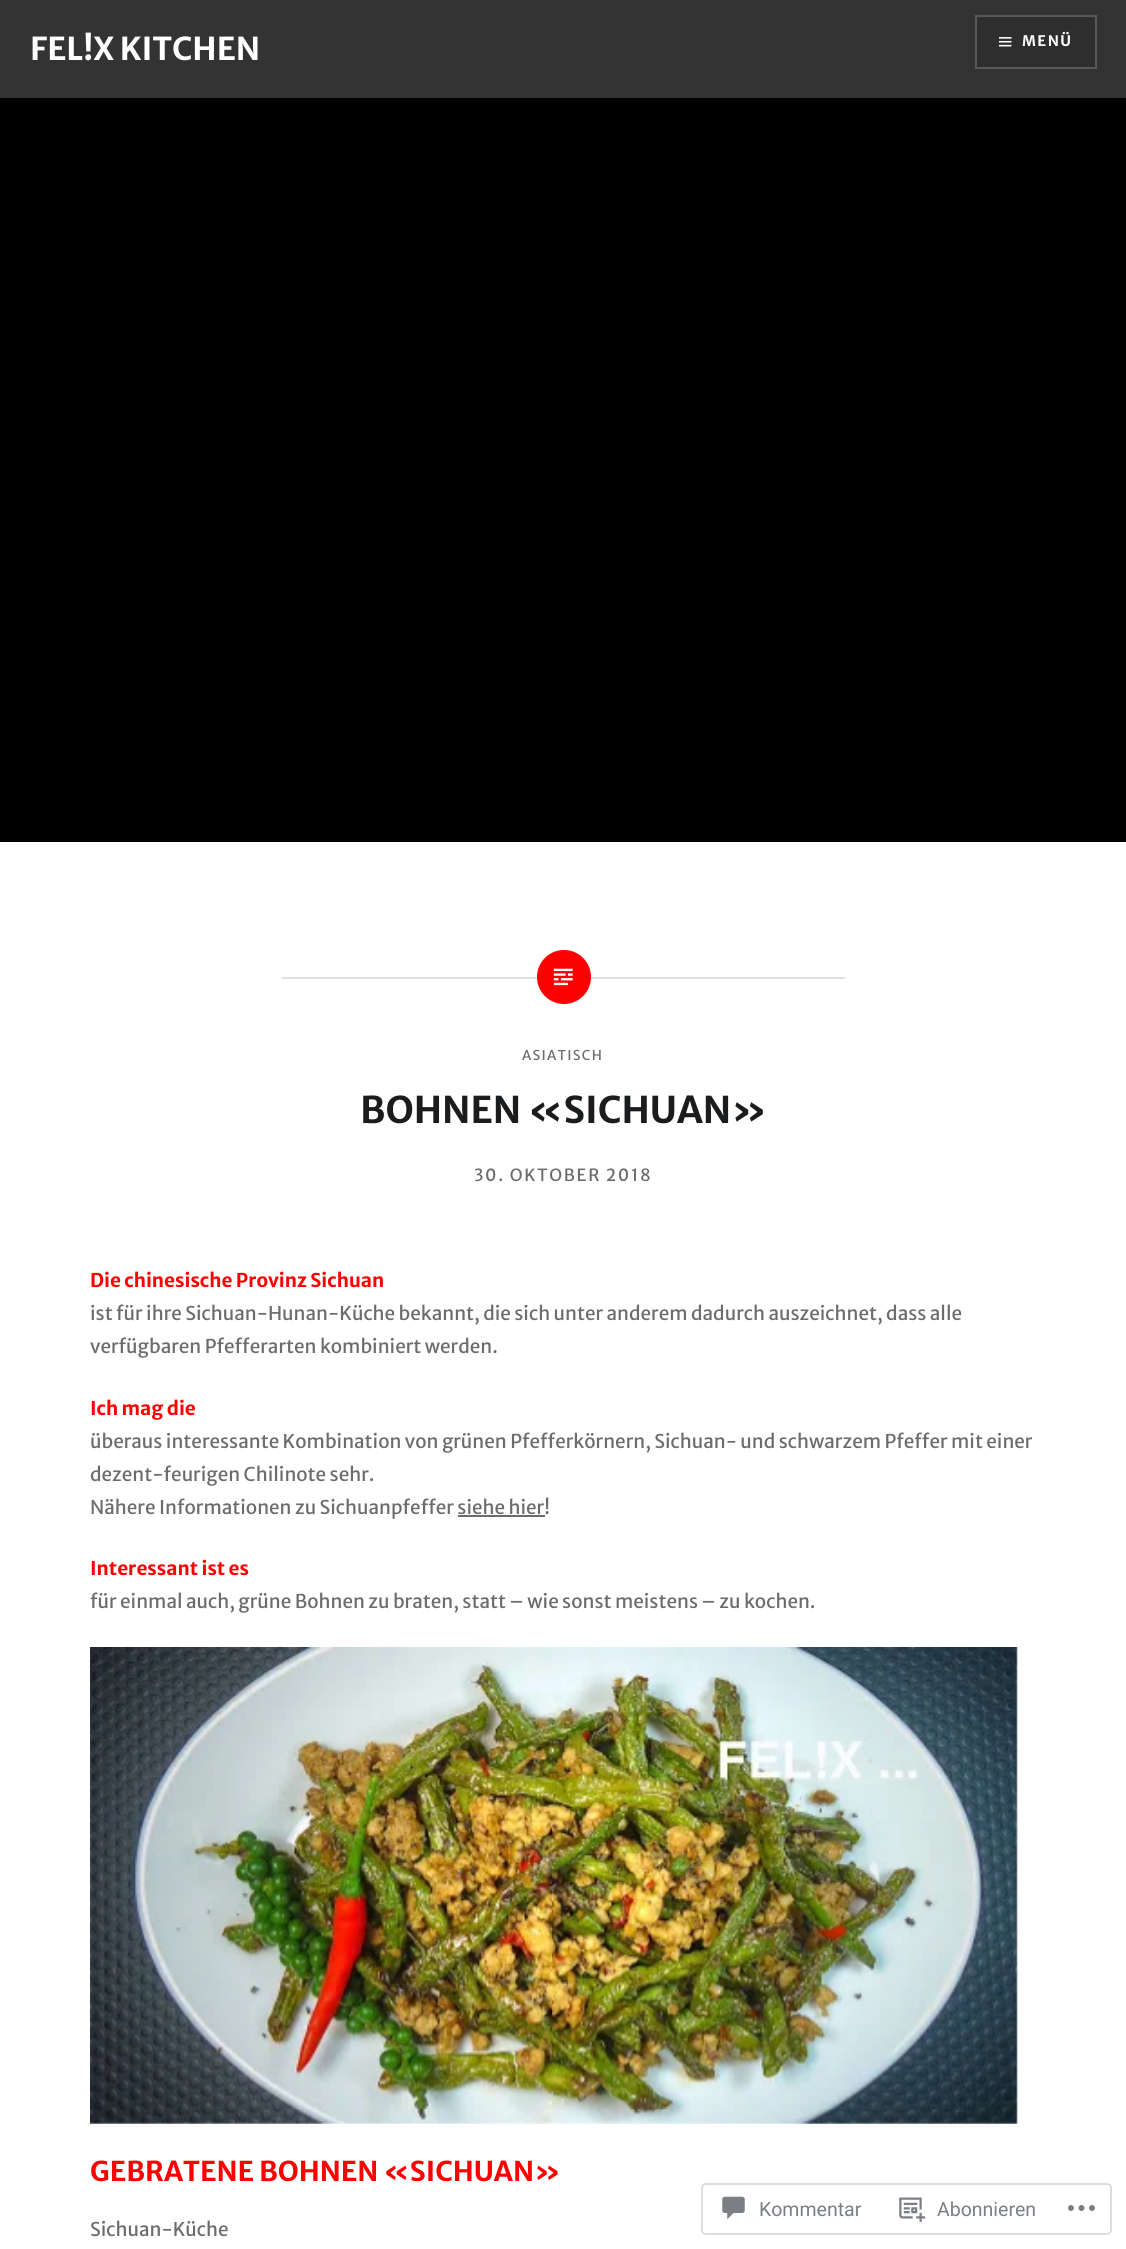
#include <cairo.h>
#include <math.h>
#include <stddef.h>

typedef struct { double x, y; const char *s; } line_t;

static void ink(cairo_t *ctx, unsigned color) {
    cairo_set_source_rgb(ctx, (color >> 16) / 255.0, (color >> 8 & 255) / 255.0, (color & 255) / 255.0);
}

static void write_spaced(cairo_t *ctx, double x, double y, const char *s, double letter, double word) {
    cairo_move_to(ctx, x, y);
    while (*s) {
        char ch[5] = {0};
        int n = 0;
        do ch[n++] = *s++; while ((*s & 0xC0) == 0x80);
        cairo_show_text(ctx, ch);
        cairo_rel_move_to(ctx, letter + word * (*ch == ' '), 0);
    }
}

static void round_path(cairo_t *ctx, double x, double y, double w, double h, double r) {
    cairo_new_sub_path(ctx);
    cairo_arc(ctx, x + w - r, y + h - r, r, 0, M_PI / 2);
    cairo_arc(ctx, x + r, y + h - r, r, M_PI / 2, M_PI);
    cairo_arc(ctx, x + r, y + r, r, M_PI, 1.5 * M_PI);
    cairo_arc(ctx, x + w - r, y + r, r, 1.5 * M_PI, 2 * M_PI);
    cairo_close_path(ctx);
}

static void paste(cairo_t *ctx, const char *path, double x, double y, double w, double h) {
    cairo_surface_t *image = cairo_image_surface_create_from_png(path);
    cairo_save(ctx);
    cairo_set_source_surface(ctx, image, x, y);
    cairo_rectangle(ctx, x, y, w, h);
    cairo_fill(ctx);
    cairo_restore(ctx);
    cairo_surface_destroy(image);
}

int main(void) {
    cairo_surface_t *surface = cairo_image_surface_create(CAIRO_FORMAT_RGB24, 1126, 2249);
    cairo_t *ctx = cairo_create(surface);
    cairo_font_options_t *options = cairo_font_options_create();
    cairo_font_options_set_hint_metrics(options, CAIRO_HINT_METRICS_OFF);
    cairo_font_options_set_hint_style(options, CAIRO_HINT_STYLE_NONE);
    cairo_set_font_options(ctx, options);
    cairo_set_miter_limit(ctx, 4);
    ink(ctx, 0xFFFFFF);
    cairo_paint(ctx);
    ink(ctx, 0x333333);
    cairo_rectangle(ctx, 0, 0, 1126, 98);
    cairo_fill(ctx);
    cairo_select_font_face(ctx, "Merriweather Sans", CAIRO_FONT_SLANT_NORMAL, CAIRO_FONT_WEIGHT_BOLD);
    cairo_set_font_size(ctx, 31.5);
    ink(ctx, 0xFFFFFF);
    cairo_move_to(ctx, 30, 60);
    cairo_show_text(ctx, "FEL!X KITCHEN");
    ink(ctx, 0x2E2E2E);
    cairo_rectangle(ctx, 976, 16, 120, 52);
    cairo_fill_preserve(ctx);
    ink(ctx, 0x585858);
    cairo_stroke(ctx);
    paste(ctx, "media/1.png", 999, 37, 13, 10);
    cairo_set_font_size(ctx, 14.5);
    ink(ctx, 0xFFFFFF);
    write_spaced(ctx, 1022, 46, "MENÜ", 1.5, 0);
    ink(ctx, 0x000000);
    cairo_rectangle(ctx, 0, 98, 1126, 744);
    cairo_fill(ctx);
    ink(ctx, 0xE0E0E0);
    cairo_rectangle(ctx, 282, 977, 563, 2);
    cairo_fill(ctx);
    ink(ctx, 0xFF0000);
    cairo_arc(ctx, 564, 977, 27, 0, 2 * M_PI);
    cairo_fill(ctx);
    paste(ctx, "media/2.png", 553, 968, 20, 18);
    cairo_select_font_face(ctx, "Merriweather Sans", CAIRO_FONT_SLANT_NORMAL, CAIRO_FONT_WEIGHT_NORMAL);
    cairo_set_font_size(ctx, 13.5);
    ink(ctx, 0x6A6C6E);
    write_spaced(ctx, 522, 1060, "ASIATISCH", 1.25, 0);
    cairo_select_font_face(ctx, "Merriweather Sans", CAIRO_FONT_SLANT_NORMAL, CAIRO_FONT_WEIGHT_BOLD);
    cairo_set_font_size(ctx, 36.75);
    ink(ctx, 0x1A1C1E);
    cairo_move_to(ctx, 360, 1123);
    cairo_show_text(ctx, "BOHNEN «SICHUAN»");
    cairo_select_font_face(ctx, "Merriweather Sans", CAIRO_FONT_SLANT_NORMAL, CAIRO_FONT_WEIGHT_NORMAL);
    cairo_set_font_size(ctx, 16.75);
    ink(ctx, 0x6A6C6E);
    write_spaced(ctx, 474, 1181, "30. OKTOBER 2018", 1.7, 0);
    cairo_select_font_face(ctx, "Merriweather Sans", CAIRO_FONT_SLANT_NORMAL, CAIRO_FONT_WEIGHT_BOLD);
    cairo_set_font_size(ctx, 18.9);
    ink(ctx, 0xFF0000);
    cairo_move_to(ctx, 90, 1287);
    cairo_show_text(ctx, "Die chinesische Provinz Sichuan");
    cairo_select_font_face(ctx, "Merriweather Sans", CAIRO_FONT_SLANT_NORMAL, CAIRO_FONT_WEIGHT_NORMAL);
    ink(ctx, 0x6A6C6E);
    cairo_move_to(ctx, 90, 1320);
    cairo_show_text(ctx, "ist für ihre Sichuan-Hunan-Küche bekannt, die sich unter anderem dadurch auszeichnet, dass alle");
    cairo_move_to(ctx, 90, 1353);
    cairo_show_text(ctx, "verfügbaren Pfefferarten kombiniert werden.");
    cairo_select_font_face(ctx, "Merriweather Sans", CAIRO_FONT_SLANT_NORMAL, CAIRO_FONT_WEIGHT_BOLD);
    ink(ctx, 0xFF0000);
    cairo_move_to(ctx, 90, 1415);
    cairo_show_text(ctx, "Ich mag die");
    cairo_select_font_face(ctx, "Merriweather Sans", CAIRO_FONT_SLANT_NORMAL, CAIRO_FONT_WEIGHT_NORMAL);
    ink(ctx, 0x6A6C6E);
    {
        static const line_t items[] = {
            {90, 1448, "überaus interessante Kombination von grünen Pfefferkörnern, Sichuan- und schwarzem Pfeffer mit einer"},
            {90, 1481, "dezent-feurigen Chilinote sehr."},
            {90, 1514, "Nähere Informationen zu Sichuanpfeffer siehe hier!"},
        };
        for (size_t i = 0; i < sizeof items / sizeof *items; i++) {
            cairo_move_to(ctx, items[i].x, items[i].y);
            cairo_show_text(ctx, items[i].s);
        }
    }
    cairo_rectangle(ctx, 458, 1515, 87, 2);
    cairo_fill(ctx);
    cairo_select_font_face(ctx, "Merriweather Sans", CAIRO_FONT_SLANT_NORMAL, CAIRO_FONT_WEIGHT_BOLD);
    ink(ctx, 0xFF0000);
    cairo_move_to(ctx, 90, 1575);
    cairo_show_text(ctx, "Interessant ist es");
    cairo_select_font_face(ctx, "Merriweather Sans", CAIRO_FONT_SLANT_NORMAL, CAIRO_FONT_WEIGHT_NORMAL);
    ink(ctx, 0x6A6C6E);
    cairo_move_to(ctx, 90, 1608);
    cairo_show_text(ctx, "für einmal auch, grüne Bohnen zu braten, statt – wie sonst meistens – zu kochen.");
    paste(ctx, "media/3.png", 90, 1647, 928, 477);
    cairo_select_font_face(ctx, "Merriweather Sans", CAIRO_FONT_SLANT_NORMAL, CAIRO_FONT_WEIGHT_BOLD);
    cairo_set_font_size(ctx, 27.25);
    ink(ctx, 0xFF0000);
    cairo_move_to(ctx, 90, 2181);
    cairo_show_text(ctx, "GEBRATENE BOHNEN «SICHUAN»");
    cairo_select_font_face(ctx, "Merriweather Sans", CAIRO_FONT_SLANT_NORMAL, CAIRO_FONT_WEIGHT_NORMAL);
    cairo_set_font_size(ctx, 18.9);
    ink(ctx, 0x6A6C6E);
    cairo_move_to(ctx, 90, 2236);
    cairo_show_text(ctx, "Sichuan-Küche");
    round_path(ctx, 702, 2184, 409, 50, 4);
    ink(ctx, 0xDDDDDF);
    cairo_stroke(ctx);
    paste(ctx, "media/4.png", 722, 2196, 23, 24);
    cairo_select_font_face(ctx, "Roboto", CAIRO_FONT_SLANT_NORMAL, CAIRO_FONT_WEIGHT_NORMAL);
    cairo_set_font_size(ctx, 19.5);
    ink(ctx, 0x7B7F85);
    cairo_move_to(ctx, 759, 2216);
    cairo_show_text(ctx, "Kommentar");
    paste(ctx, "media/5.png", 899, 2197, 27, 25);
    cairo_move_to(ctx, 937, 2216);
    cairo_show_text(ctx, "Abonnieren");
    paste(ctx, "media/6.png", 1068, 2205, 27, 6);
    cairo_surface_write_to_png(surface, "image.png");
    cairo_font_options_destroy(options);
    cairo_destroy(ctx);
    cairo_surface_destroy(surface);
    return 0;
}
